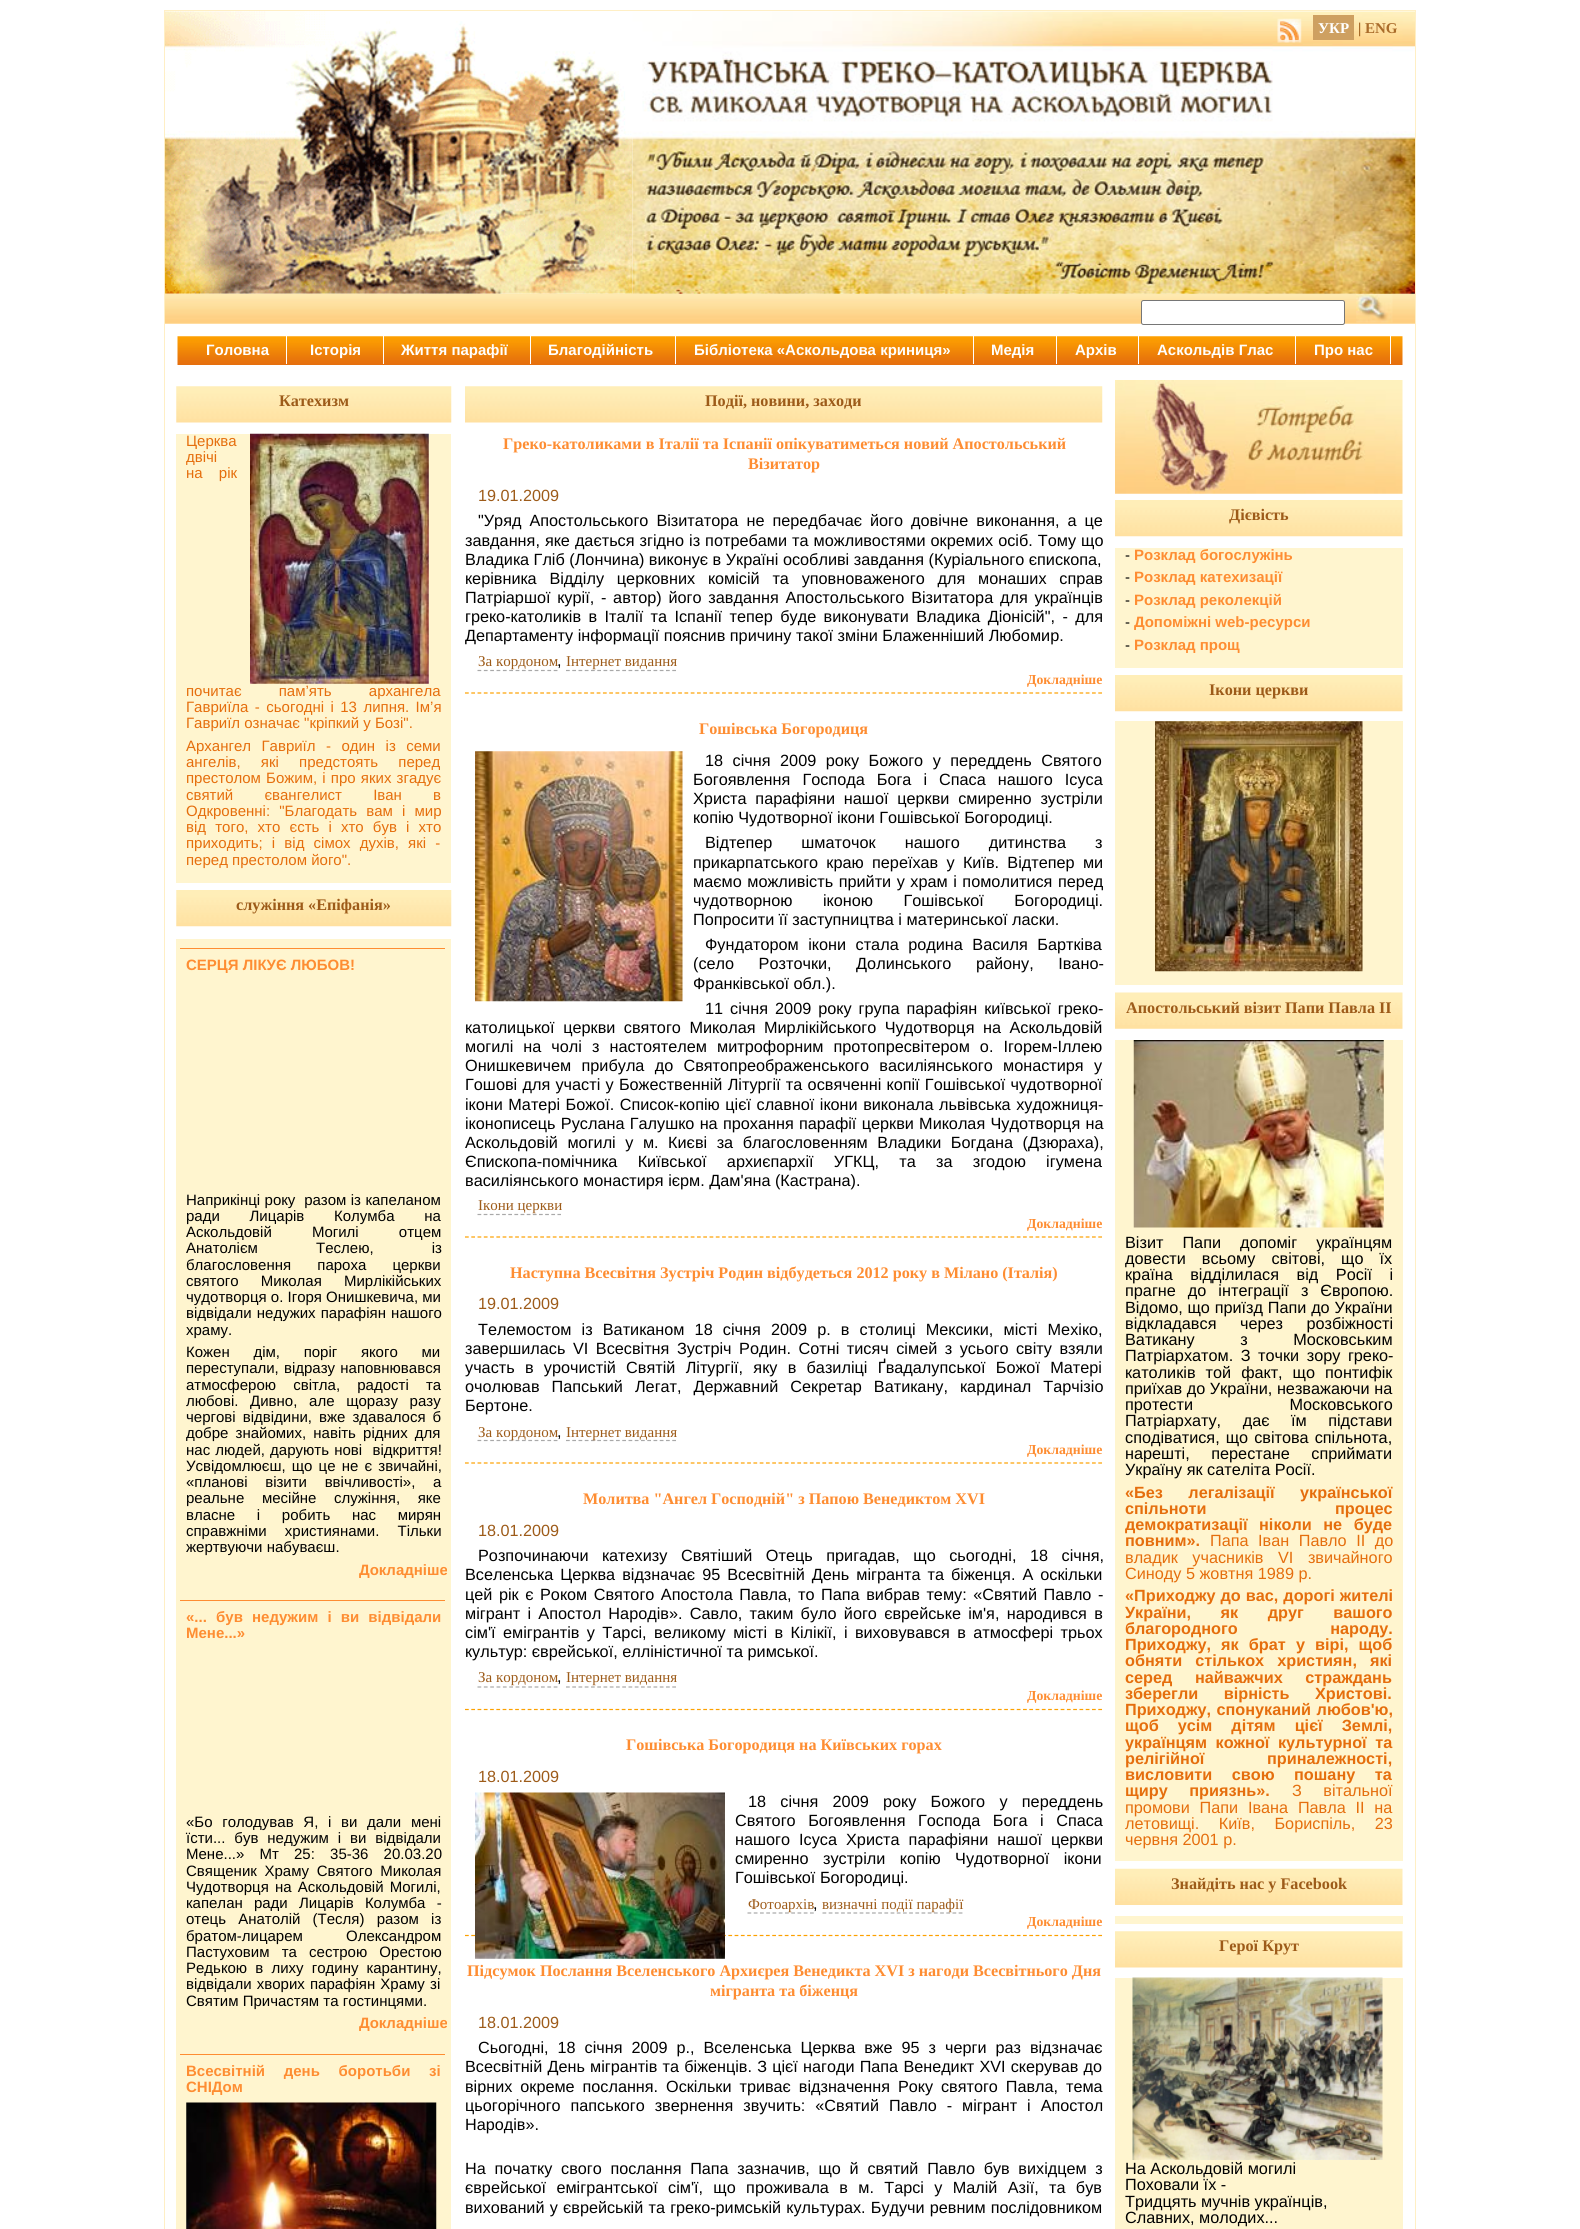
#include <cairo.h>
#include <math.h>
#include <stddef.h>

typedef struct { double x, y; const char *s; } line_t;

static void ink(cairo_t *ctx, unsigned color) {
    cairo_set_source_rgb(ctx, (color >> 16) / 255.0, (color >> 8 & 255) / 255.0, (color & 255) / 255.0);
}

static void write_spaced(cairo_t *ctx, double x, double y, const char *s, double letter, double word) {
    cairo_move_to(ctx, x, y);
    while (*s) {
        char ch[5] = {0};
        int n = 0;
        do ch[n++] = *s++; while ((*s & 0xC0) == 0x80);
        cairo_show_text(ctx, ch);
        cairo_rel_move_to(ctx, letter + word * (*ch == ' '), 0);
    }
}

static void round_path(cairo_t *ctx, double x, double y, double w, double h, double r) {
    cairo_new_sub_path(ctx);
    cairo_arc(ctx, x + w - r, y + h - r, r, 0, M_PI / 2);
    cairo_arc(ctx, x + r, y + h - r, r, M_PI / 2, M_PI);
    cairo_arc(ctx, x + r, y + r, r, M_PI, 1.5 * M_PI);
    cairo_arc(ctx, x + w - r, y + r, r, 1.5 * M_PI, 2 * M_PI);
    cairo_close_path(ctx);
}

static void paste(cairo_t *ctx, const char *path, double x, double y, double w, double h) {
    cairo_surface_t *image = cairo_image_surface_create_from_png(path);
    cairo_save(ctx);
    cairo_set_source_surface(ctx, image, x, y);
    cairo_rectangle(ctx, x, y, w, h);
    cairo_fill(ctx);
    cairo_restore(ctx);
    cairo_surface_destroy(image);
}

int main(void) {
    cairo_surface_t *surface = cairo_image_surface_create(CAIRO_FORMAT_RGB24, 1580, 2229);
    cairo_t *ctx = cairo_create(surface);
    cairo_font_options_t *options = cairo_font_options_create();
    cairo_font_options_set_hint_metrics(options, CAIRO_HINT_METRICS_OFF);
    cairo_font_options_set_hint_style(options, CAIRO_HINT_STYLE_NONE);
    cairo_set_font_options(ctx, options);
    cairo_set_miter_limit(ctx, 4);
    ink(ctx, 0xFFFFFF);
    cairo_paint(ctx);
    cairo_rectangle(ctx, 164.5, 10.5, 1251, 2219);
    ink(ctx, 0xFFEFC5);
    cairo_set_line_width(ctx, 1);
    cairo_stroke(ctx);
    paste(ctx, "media/1.png", 165, 11, 468, 283);
    paste(ctx, "media/4.png", 165, 293, 1250, 31);
    paste(ctx, "media/5.png", 1356, 293, 37, 30);
    paste(ctx, "media/2.png", 632, 11, 783, 283);
    paste(ctx, "media/3.png", 1277, 18, 25, 25);
    ink(ctx, 0xCEA061);
    cairo_rectangle(ctx, 1313, 15, 41, 25);
    cairo_fill(ctx);
    cairo_select_font_face(ctx, "Liberation Serif", CAIRO_FONT_SLANT_NORMAL, CAIRO_FONT_WEIGHT_BOLD);
    cairo_set_font_size(ctx, 15);
    ink(ctx, 0xFFFFFF);
    cairo_move_to(ctx, 1318, 33);
    cairo_show_text(ctx, "УКР");
    ink(ctx, 0x9D5B19);
    cairo_move_to(ctx, 1358, 33);
    cairo_show_text(ctx, "|");
    ink(ctx, 0xAA6C2A);
    cairo_move_to(ctx, 1365, 33);
    cairo_show_text(ctx, "ENG");
    ink(ctx, 0xFFFFFF);
    round_path(ctx, 1141.5, 300.5, 203, 24, 2);
    cairo_fill_preserve(ctx);
    ink(ctx, 0x767676);
    cairo_stroke(ctx);
    paste(ctx, "media/6.png", 177, 336, 1226, 29);
    cairo_select_font_face(ctx, "Liberation Sans", CAIRO_FONT_SLANT_NORMAL, CAIRO_FONT_WEIGHT_BOLD);
    ink(ctx, 0xFFFFFF);
    cairo_move_to(ctx, 206, 355);
    cairo_show_text(ctx, "Головна");
    cairo_rectangle(ctx, 286, 336, 1, 28);
    cairo_fill(ctx);
    cairo_move_to(ctx, 310, 355);
    cairo_show_text(ctx, "Історія");
    cairo_rectangle(ctx, 383, 336, 1, 28);
    cairo_fill(ctx);
    cairo_move_to(ctx, 401, 355);
    cairo_show_text(ctx, "Життя парафії");
    cairo_rectangle(ctx, 530, 336, 1, 28);
    cairo_fill(ctx);
    cairo_move_to(ctx, 548, 355);
    cairo_show_text(ctx, "Благодійність");
    cairo_rectangle(ctx, 675, 336, 1, 28);
    cairo_fill(ctx);
    cairo_move_to(ctx, 694, 355);
    cairo_show_text(ctx, "Бібліотека «Аскольдова криниця»");
    cairo_rectangle(ctx, 973, 336, 1, 28);
    cairo_fill(ctx);
    cairo_move_to(ctx, 991, 355);
    cairo_show_text(ctx, "Медія");
    cairo_rectangle(ctx, 1056, 336, 1, 28);
    cairo_fill(ctx);
    cairo_move_to(ctx, 1075, 355);
    cairo_show_text(ctx, "Архів");
    cairo_rectangle(ctx, 1138, 336, 1, 28);
    cairo_fill(ctx);
    cairo_move_to(ctx, 1157, 355);
    cairo_show_text(ctx, "Аскольдів Глас");
    cairo_rectangle(ctx, 1295, 336, 1, 28);
    cairo_fill(ctx);
    cairo_move_to(ctx, 1314, 355);
    cairo_show_text(ctx, "Про нас");
    cairo_rectangle(ctx, 1390, 336, 1, 28);
    cairo_fill(ctx);
    paste(ctx, "media/7.png", 176, 386, 276, 37);
    cairo_select_font_face(ctx, "Liberation Serif", CAIRO_FONT_SLANT_NORMAL, CAIRO_FONT_WEIGHT_BOLD);
    cairo_set_font_size(ctx, 16.2);
    ink(ctx, 0x9D5B19);
    cairo_move_to(ctx, 279, 406);
    cairo_show_text(ctx, "Катехизм");
    ink(ctx, 0xFFF5CF);
    cairo_rectangle(ctx, 176, 434, 275, 449);
    cairo_fill(ctx);
    cairo_select_font_face(ctx, "Liberation Sans", CAIRO_FONT_SLANT_NORMAL, CAIRO_FONT_WEIGHT_NORMAL);
    cairo_set_font_size(ctx, 15);
    ink(ctx, 0xE56E0D);
    cairo_move_to(ctx, 186, 446);
    cairo_show_text(ctx, "Церква");
    paste(ctx, "media/8.png", 250, 433, 179, 251);
    cairo_move_to(ctx, 186, 462);
    cairo_show_text(ctx, "двічі");
    write_spaced(ctx, 186, 478, "на рік", 0, 12);
    write_spaced(ctx, 186, 696, "почитає пам’ять архангела", 0, 33);
    write_spaced(ctx, 186, 712, "Гавриїла - сьогодні і 13 липня. Ім’я", 0, 2.25);
    cairo_move_to(ctx, 186, 728);
    cairo_show_text(ctx, "Гавриїл означає \"кріпкий у Бозі\".");
    write_spaced(ctx, 186, 751, "Архангел Гавриїл - один із семи", 0, 6.25);
    write_spaced(ctx, 186, 767, "ангелів, які предстоять перед", 0, 16);
    write_spaced(ctx, 186, 783, "престолом Божим, і про яких згадує", 0, 1);
    write_spaced(ctx, 186, 800, "святий євангелист Іван в", 0, 27);
    {
        static const line_t items[] = {
            {186, 816, "Одкровенні: \"Благодать вам і мир"},
            {186, 832, "від того, хто єсть і хто був і хто"},
            {186, 848, "приходить; і від сімох духів, які -"},
        };
        for (size_t i = 0; i < sizeof items / sizeof *items; i++) {
            write_spaced(ctx, items[i].x, items[i].y, items[i].s, 0, 5);
        }
    }
    cairo_move_to(ctx, 186, 865);
    cairo_show_text(ctx, "перед престолом його\".");
    paste(ctx, "media/9.png", 176, 890, 276, 37);
    cairo_select_font_face(ctx, "Liberation Serif", CAIRO_FONT_SLANT_NORMAL, CAIRO_FONT_WEIGHT_BOLD);
    cairo_set_font_size(ctx, 16.2);
    ink(ctx, 0x9D5B19);
    cairo_move_to(ctx, 236, 910);
    cairo_show_text(ctx, "служіння «Епіфанія»");
    ink(ctx, 0xFFF5CF);
    cairo_rectangle(ctx, 176, 939, 275, 1290);
    cairo_fill(ctx);
    ink(ctx, 0xFE8D32);
    cairo_rectangle(ctx, 180, 948, 265, 1);
    cairo_fill(ctx);
    cairo_select_font_face(ctx, "Liberation Sans", CAIRO_FONT_SLANT_NORMAL, CAIRO_FONT_WEIGHT_BOLD);
    cairo_set_font_size(ctx, 15);
    cairo_move_to(ctx, 186, 970);
    cairo_show_text(ctx, "СЕРЦЯ ЛІКУЄ ЛЮБОВ!");
    cairo_select_font_face(ctx, "Liberation Sans", CAIRO_FONT_SLANT_NORMAL, CAIRO_FONT_WEIGHT_NORMAL);
    ink(ctx, 0x000000);
    write_spaced(ctx, 186, 1205, "Наприкінці року  разом із капеланом", 0, 0.25);
    write_spaced(ctx, 186, 1221, "ради Лицарів Колумба на", 0, 25.5);
    write_spaced(ctx, 186, 1237, "Аскольдовій Могилі отцем", 0, 36);
    write_spaced(ctx, 186, 1253, "Анатолієм Теслею, із", 0, 54);
    write_spaced(ctx, 186, 1270, "благословення пароха церкви", 0, 22);
    write_spaced(ctx, 186, 1286, "святого Миколая Мирлікійських", 0, 18);
    cairo_move_to(ctx, 186, 1302);
    cairo_show_text(ctx, "чудотворця о. Ігоря Онишкевича, ми");
    write_spaced(ctx, 186, 1318, "відвідали недужих парафіян нашого", 0, 1);
    cairo_move_to(ctx, 186, 1335);
    cairo_show_text(ctx, "храму.");
    write_spaced(ctx, 186, 1357, "Кожен дім, поріг якого ми", 0, 19.5);
    write_spaced(ctx, 186, 1373, "переступали, відразу наповнювався", 0, 1);
    write_spaced(ctx, 186, 1390, "атмосферою світла, радості та", 0, 13);
    write_spaced(ctx, 186, 1406, "любові. Дивно, але щоразу разу", 0, 7.5);
    write_spaced(ctx, 186, 1422, "чергові відвідини, вже здавалося б", 0, 2.9);
    write_spaced(ctx, 186, 1438, "добре знайомих, навіть рідних для", 0, 3);
    write_spaced(ctx, 186, 1455, "нас людей, дарують нові  відкриття!", 0, 1);
    write_spaced(ctx, 186, 1471, "Усвідомлюєш, що це не є звичайні,", 0, 2);
    write_spaced(ctx, 186, 1487, "«планові візити ввічливості», а", 0, 13.5);
    write_spaced(ctx, 186, 1503, "реальне месійне служіння, яке", 0, 13.5);
    write_spaced(ctx, 186, 1520, "власне і робить нас мирян", 0, 17.5);
    write_spaced(ctx, 186, 1536, "справжніми християнами. Тільки", 0, 14);
    cairo_move_to(ctx, 186, 1552);
    cairo_show_text(ctx, "жертвуючи набуваєш.");
    cairo_select_font_face(ctx, "Liberation Sans", CAIRO_FONT_SLANT_NORMAL, CAIRO_FONT_WEIGHT_BOLD);
    ink(ctx, 0xFE8D32);
    cairo_move_to(ctx, 359, 1575);
    cairo_show_text(ctx, "Докладніше");
    cairo_rectangle(ctx, 180, 1600, 265, 1);
    cairo_fill(ctx);
    write_spaced(ctx, 186, 1622, "«... був недужим і ви відвідали", 0, 5);
    cairo_move_to(ctx, 186, 1638);
    cairo_show_text(ctx, "Мене...»");
    cairo_select_font_face(ctx, "Liberation Sans", CAIRO_FONT_SLANT_NORMAL, CAIRO_FONT_WEIGHT_NORMAL);
    ink(ctx, 0x000000);
    write_spaced(ctx, 186, 1827, "«Бо голодував Я, і ви дали мені", 0, 5.5);
    write_spaced(ctx, 186, 1843, "їсти... був недужим і ви відвідали", 0, 4.75);
    write_spaced(ctx, 186, 1859, "Мене...» Мт 25: 35-36 20.03.20", 0, 11);
    write_spaced(ctx, 186, 1876, "Священик Храму Святого Миколая", 0, 3.5);
    write_spaced(ctx, 186, 1892, "Чудотворця на Аскольдовій Могилі,", 0, 2);
    write_spaced(ctx, 186, 1908, "капелан ради Лицарів Колумба -", 0, 7);
    write_spaced(ctx, 186, 1924, "отець Анатолій (Тесля) разом із", 0, 8);
    write_spaced(ctx, 186, 1941, "братом-лицарем Олександром", 0, 39);
    write_spaced(ctx, 186, 1957, "Пастуховим та сестрою Орестою", 0, 8);
    write_spaced(ctx, 186, 1973, "Редькою в лиху годину карантину,", 0, 4);
    write_spaced(ctx, 186, 1989, "відвідали хворих парафіян Храму зі", 0, 1);
    cairo_move_to(ctx, 186, 2006);
    cairo_show_text(ctx, "Святим Причастям та гостинцями.");
    cairo_select_font_face(ctx, "Liberation Sans", CAIRO_FONT_SLANT_NORMAL, CAIRO_FONT_WEIGHT_BOLD);
    ink(ctx, 0xFE8D32);
    cairo_move_to(ctx, 359, 2028);
    cairo_show_text(ctx, "Докладніше");
    cairo_rectangle(ctx, 180, 2054, 265, 1);
    cairo_fill(ctx);
    write_spaced(ctx, 186, 2076, "Всесвітній день боротьби зі", 0, 14.5);
    cairo_move_to(ctx, 186, 2092);
    cairo_show_text(ctx, "СНІДом");
    paste(ctx, "media/10.png", 186, 2102, 251, 127);
    paste(ctx, "media/11.png", 465, 386, 638, 37);
    cairo_select_font_face(ctx, "Liberation Serif", CAIRO_FONT_SLANT_NORMAL, CAIRO_FONT_WEIGHT_BOLD);
    cairo_set_font_size(ctx, 16.2);
    ink(ctx, 0x9D5B19);
    cairo_move_to(ctx, 705, 406);
    cairo_show_text(ctx, "Події, новини, заходи");
    cairo_set_font_size(ctx, 16.15);
    ink(ctx, 0xFE8D32);
    cairo_move_to(ctx, 503, 449);
    cairo_show_text(ctx, "Греко-католиками в Італії та Іспанії опікуватиметься новий Апостольський");
    cairo_move_to(ctx, 748, 469);
    cairo_show_text(ctx, "Візитатор");
    cairo_select_font_face(ctx, "Liberation Sans", CAIRO_FONT_SLANT_NORMAL, CAIRO_FONT_WEIGHT_NORMAL);
    cairo_set_font_size(ctx, 16.2);
    ink(ctx, 0x9D5B19);
    cairo_move_to(ctx, 478, 501);
    cairo_show_text(ctx, "19.01.2009");
    cairo_set_font_size(ctx, 16.25);
    ink(ctx, 0x000000);
    write_spaced(ctx, 478, 526, "\"Уряд Апостольського Візитатора не передбачає його довічне виконання, а це", 0, 3.5);
    write_spaced(ctx, 465, 546, "завдання, яке дається згідно із потребами та можливостями окремих осіб. Тому що", 0, 0.5);
    cairo_move_to(ctx, 465, 565);
    cairo_show_text(ctx, "Владика Гліб (Лончина) виконує в Україні особливі завдання (Куріального єпископа,");
    write_spaced(ctx, 465, 584, "керівника Відділу церковних комісій та уповноваженого для монаших справ", 0, 8.25);
    write_spaced(ctx, 465, 603, "Патріаршої курії, - автор) його завдання Апостольського Візитатора для українців", 0, 2.25);
    write_spaced(ctx, 465, 622, "греко-католиків в Італії та Іспанії тепер буде виконувати Владика Діонісій\", - для", 0, 2.9);
    cairo_move_to(ctx, 465, 641);
    cairo_show_text(ctx, "Департаменту інформації пояснив причину такої зміни Блаженніший Любомир.");
    cairo_new_path(ctx);
    cairo_move_to(ctx, 477.5, 670.5);
    cairo_line_to(ctx, 557.5, 670.5);
    ink(ctx, 0xA9A9A9);
    cairo_set_line_width(ctx, 1.2);
    cairo_set_dash(ctx, (double[]){3.75, 2.6}, 2, 0);
    cairo_stroke(ctx);
    cairo_select_font_face(ctx, "Liberation Serif", CAIRO_FONT_SLANT_NORMAL, CAIRO_FONT_WEIGHT_NORMAL);
    cairo_set_font_size(ctx, 15);
    ink(ctx, 0x9D5B19);
    cairo_move_to(ctx, 478, 666);
    cairo_show_text(ctx, "За кордоном");
    cairo_select_font_face(ctx, "Liberation Sans", CAIRO_FONT_SLANT_NORMAL, CAIRO_FONT_WEIGHT_NORMAL);
    cairo_set_font_size(ctx, 16.2);
    ink(ctx, 0x000000);
    cairo_move_to(ctx, 557, 666);
    cairo_show_text(ctx, ",");
    cairo_new_path(ctx);
    cairo_move_to(ctx, 566, 670.5);
    cairo_line_to(ctx, 676, 670.5);
    ink(ctx, 0xA9A9A9);
    cairo_set_dash(ctx, (double[]){3.75, 2.5}, 2, 0);
    cairo_stroke(ctx);
    cairo_select_font_face(ctx, "Liberation Serif", CAIRO_FONT_SLANT_NORMAL, CAIRO_FONT_WEIGHT_NORMAL);
    cairo_set_font_size(ctx, 15);
    ink(ctx, 0x9D5B19);
    cairo_move_to(ctx, 566, 666);
    cairo_show_text(ctx, "Інтернет видання");
    cairo_new_path(ctx);
    cairo_move_to(ctx, 465, 693);
    cairo_line_to(ctx, 1102.5, 693);
    ink(ctx, 0xFDA100);
    cairo_set_dash(ctx, (double[]){3.75, 2.52}, 2, 0);
    cairo_stroke(ctx);
    cairo_select_font_face(ctx, "Liberation Serif", CAIRO_FONT_SLANT_NORMAL, CAIRO_FONT_WEIGHT_BOLD);
    cairo_set_font_size(ctx, 13.75);
    ink(ctx, 0xFE8D32);
    cairo_move_to(ctx, 1027, 684);
    cairo_show_text(ctx, "Докладніше");
    cairo_set_font_size(ctx, 16.15);
    cairo_move_to(ctx, 699, 734);
    cairo_show_text(ctx, "Гошівська Богородиця");
    paste(ctx, "media/12.png", 475, 751, 208, 251);
    cairo_select_font_face(ctx, "Liberation Sans", CAIRO_FONT_SLANT_NORMAL, CAIRO_FONT_WEIGHT_NORMAL);
    cairo_set_font_size(ctx, 16.25);
    ink(ctx, 0x000000);
    write_spaced(ctx, 705, 766, "18 січня 2009 року Божого у переддень Святого", 0, 5);
    write_spaced(ctx, 693, 785, "Богоявлення Господа Бога і Спаса нашого Ісуса", 0, 7.5);
    write_spaced(ctx, 693, 804, "Христа парафіяни нашої церкви смиренно зустріли", 0, 4.25);
    cairo_move_to(ctx, 693, 823);
    cairo_show_text(ctx, "копію Чудотворної ікони Гошівської Богородиці.");
    write_spaced(ctx, 705, 848, "Відтепер шматочок нашого дитинства з", 0, 24.5);
    write_spaced(ctx, 693, 868, "прикарпатського краю переїхав у Київ. Відтепер ми", 0, 3.75);
    write_spaced(ctx, 693, 887, "маємо можливість прийти у храм і помолитися перед", 0, 1);
    write_spaced(ctx, 693, 906, "чудотворною іконою Гошівської Богородиці.", 0, 26);
    cairo_move_to(ctx, 693, 925);
    cairo_show_text(ctx, "Попросити її заступництва і материнської ласки.");
    write_spaced(ctx, 705, 950, "Фундатором ікони стала родина Василя Бартківа", 0, 5);
    write_spaced(ctx, 693, 969, "(село Розточки, Долинського району, Івано-", 0, 20);
    cairo_move_to(ctx, 693, 989);
    cairo_show_text(ctx, "Франківської обл.).");
    write_spaced(ctx, 705, 1014, "11 січня 2009 року група парафіян київської греко-", 0, 2.5);
    write_spaced(ctx, 465, 1033, "католицької церкви святого Миколая Мирлікійського Чудотворця на Аскольдовій", 0, 4);
    write_spaced(ctx, 465, 1052, "могилі на чолі з настоятелем митрофорним протопресвітером о. Ігорем-Іллею", 0, 5.5);
    write_spaced(ctx, 465, 1071, "Онишкевичем прибула до Святопреображенського василіянського монастиря у", 0, 5.75);
    write_spaced(ctx, 465, 1090, "Гошові для участі у Божественній Літургії та освяченні копії Гошівської чудотворної", 0, 0.75);
    write_spaced(ctx, 465, 1110, "ікони Матері Божої. Список-копію цієї славної ікони виконала львівська художниця-", 0, 1);
    write_spaced(ctx, 465, 1129, "іконописець Руслана Галушко на прохання парафії церкви Миколая Чудотворця на", 0, 0.75);
    write_spaced(ctx, 465, 1148, "Аскольдовій могилі у м. Києві за благословенням Владики Богдана (Дзюраха),", 0, 5);
    write_spaced(ctx, 465, 1167, "Єпископа-помічника Київської архиєпархії УГКЦ, та за згодою ігумена", 0, 15.75);
    cairo_move_to(ctx, 465, 1186);
    cairo_show_text(ctx, "василіянського монастиря ієрм. Дам'яна (Кастрана).");
    cairo_new_path(ctx);
    cairo_move_to(ctx, 477.5, 1214.5);
    cairo_line_to(ctx, 561, 1214.5);
    ink(ctx, 0xA9A9A9);
    cairo_set_dash(ctx, (double[]){3.75, 2.4}, 2, 0);
    cairo_stroke(ctx);
    cairo_select_font_face(ctx, "Liberation Serif", CAIRO_FONT_SLANT_NORMAL, CAIRO_FONT_WEIGHT_NORMAL);
    cairo_set_font_size(ctx, 15);
    ink(ctx, 0x9D5B19);
    cairo_move_to(ctx, 478, 1210);
    cairo_show_text(ctx, "Ікони церкви");
    cairo_new_path(ctx);
    cairo_move_to(ctx, 465, 1237);
    cairo_line_to(ctx, 1102.5, 1237);
    ink(ctx, 0xFDA100);
    cairo_set_dash(ctx, (double[]){3.75, 2.52}, 2, 0);
    cairo_stroke(ctx);
    cairo_select_font_face(ctx, "Liberation Serif", CAIRO_FONT_SLANT_NORMAL, CAIRO_FONT_WEIGHT_BOLD);
    cairo_set_font_size(ctx, 13.75);
    ink(ctx, 0xFE8D32);
    cairo_move_to(ctx, 1027, 1228);
    cairo_show_text(ctx, "Докладніше");
    cairo_set_font_size(ctx, 16.15);
    cairo_move_to(ctx, 510, 1278);
    cairo_show_text(ctx, "Наступна Всесвітня Зустріч Родин відбудеться 2012 року в Мілано (Італія)");
    cairo_select_font_face(ctx, "Liberation Sans", CAIRO_FONT_SLANT_NORMAL, CAIRO_FONT_WEIGHT_NORMAL);
    cairo_set_font_size(ctx, 16.2);
    ink(ctx, 0x9D5B19);
    cairo_move_to(ctx, 478, 1309);
    cairo_show_text(ctx, "19.01.2009");
    cairo_set_font_size(ctx, 16.25);
    ink(ctx, 0x000000);
    write_spaced(ctx, 478, 1335, "Телемостом із Ватиканом 18 січня 2009 р. в столиці Мексики, місті Мехіко,", 0, 5.6);
    write_spaced(ctx, 465, 1354, "завершилась VI Всесвітня Зустріч Родин. Сотні тисяч сімей з усього світу взяли", 0, 3);
    write_spaced(ctx, 465, 1373, "участь в урочистій Святій Літургії, яку в базиліці Ґвадалупської Божої Матері", 0, 5.75);
    write_spaced(ctx, 465, 1392, "очолював Папський Легат, Державний Секретар Ватикану, кардинал Тарчізіо", 0, 7.5);
    cairo_move_to(ctx, 465, 1411);
    cairo_show_text(ctx, "Бертоне.");
    cairo_new_path(ctx);
    cairo_move_to(ctx, 477.5, 1440.5);
    cairo_line_to(ctx, 557.5, 1440.5);
    ink(ctx, 0xA9A9A9);
    cairo_set_dash(ctx, (double[]){3.75, 2.6}, 2, 0);
    cairo_stroke(ctx);
    cairo_select_font_face(ctx, "Liberation Serif", CAIRO_FONT_SLANT_NORMAL, CAIRO_FONT_WEIGHT_NORMAL);
    cairo_set_font_size(ctx, 15);
    ink(ctx, 0x9D5B19);
    cairo_move_to(ctx, 478, 1437);
    cairo_show_text(ctx, "За кордоном");
    cairo_select_font_face(ctx, "Liberation Sans", CAIRO_FONT_SLANT_NORMAL, CAIRO_FONT_WEIGHT_NORMAL);
    cairo_set_font_size(ctx, 16.2);
    ink(ctx, 0x000000);
    cairo_move_to(ctx, 557, 1437);
    cairo_show_text(ctx, ",");
    cairo_new_path(ctx);
    cairo_move_to(ctx, 566, 1440.5);
    cairo_line_to(ctx, 676, 1440.5);
    ink(ctx, 0xA9A9A9);
    cairo_set_dash(ctx, (double[]){3.75, 2.5}, 2, 0);
    cairo_stroke(ctx);
    cairo_select_font_face(ctx, "Liberation Serif", CAIRO_FONT_SLANT_NORMAL, CAIRO_FONT_WEIGHT_NORMAL);
    cairo_set_font_size(ctx, 15);
    ink(ctx, 0x9D5B19);
    cairo_move_to(ctx, 566, 1437);
    cairo_show_text(ctx, "Інтернет видання");
    cairo_new_path(ctx);
    cairo_move_to(ctx, 465, 1463);
    cairo_line_to(ctx, 1102.5, 1463);
    ink(ctx, 0xFDA100);
    cairo_set_dash(ctx, (double[]){3.75, 2.52}, 2, 0);
    cairo_stroke(ctx);
    cairo_select_font_face(ctx, "Liberation Serif", CAIRO_FONT_SLANT_NORMAL, CAIRO_FONT_WEIGHT_BOLD);
    cairo_set_font_size(ctx, 13.75);
    ink(ctx, 0xFE8D32);
    cairo_move_to(ctx, 1027, 1454);
    cairo_show_text(ctx, "Докладніше");
    cairo_set_font_size(ctx, 16.15);
    cairo_move_to(ctx, 583, 1504);
    cairo_show_text(ctx, "Молитва \"Ангел Господній\" з Папою Венедиктом XVI");
    cairo_select_font_face(ctx, "Liberation Sans", CAIRO_FONT_SLANT_NORMAL, CAIRO_FONT_WEIGHT_NORMAL);
    cairo_set_font_size(ctx, 16.2);
    ink(ctx, 0x9D5B19);
    cairo_move_to(ctx, 478, 1536);
    cairo_show_text(ctx, "18.01.2009");
    cairo_set_font_size(ctx, 16.25);
    ink(ctx, 0x000000);
    write_spaced(ctx, 478, 1561, "Розпочинаючи катехизу Святіший Отець пригадав, що сьогодні, 18 січня,", 0, 9);
    write_spaced(ctx, 465, 1580, "Вселенська Церква відзначає 95 Всесвітній День мігранта та біженця. А оскільки", 0, 2.5);
    write_spaced(ctx, 465, 1600, "цей рік є Роком Святого Апостола Павла, то Папа вибрав тему: «Святий Павло -", 0, 2);
    write_spaced(ctx, 465, 1619, "мігрант і Апостол Народів». Савло, таким було його єврейське ім'я, народився в", 0, 2.75);
    write_spaced(ctx, 465, 1638, "сім'ї емігрантів у Тарсі, великому місті в Кілікії, і виховувався в атмосфері трьох", 0, 2.9);
    cairo_move_to(ctx, 465, 1657);
    cairo_show_text(ctx, "культур: єврейської, елліністичної та римської.");
    cairo_select_font_face(ctx, "Liberation Serif", CAIRO_FONT_SLANT_NORMAL, CAIRO_FONT_WEIGHT_NORMAL);
    cairo_set_font_size(ctx, 15);
    ink(ctx, 0x9D5B19);
    cairo_move_to(ctx, 478, 1682);
    cairo_show_text(ctx, "За кордоном");
    cairo_new_path(ctx);
    cairo_move_to(ctx, 477.5, 1687);
    cairo_line_to(ctx, 557.5, 1687);
    ink(ctx, 0xA9A9A9);
    cairo_set_dash(ctx, (double[]){3.75, 2.6}, 2, 0);
    cairo_stroke(ctx);
    cairo_select_font_face(ctx, "Liberation Sans", CAIRO_FONT_SLANT_NORMAL, CAIRO_FONT_WEIGHT_NORMAL);
    cairo_set_font_size(ctx, 16.2);
    ink(ctx, 0x000000);
    cairo_move_to(ctx, 557, 1682);
    cairo_show_text(ctx, ",");
    cairo_select_font_face(ctx, "Liberation Serif", CAIRO_FONT_SLANT_NORMAL, CAIRO_FONT_WEIGHT_NORMAL);
    cairo_set_font_size(ctx, 15);
    ink(ctx, 0x9D5B19);
    cairo_move_to(ctx, 566, 1682);
    cairo_show_text(ctx, "Інтернет видання");
    cairo_new_path(ctx);
    cairo_move_to(ctx, 566, 1687);
    cairo_line_to(ctx, 676, 1687);
    ink(ctx, 0xA9A9A9);
    cairo_set_dash(ctx, (double[]){3.75, 2.5}, 2, 0);
    cairo_stroke(ctx);
    cairo_new_path(ctx);
    cairo_move_to(ctx, 465, 1709.5);
    cairo_line_to(ctx, 1102.5, 1709.5);
    ink(ctx, 0xFDA100);
    cairo_set_dash(ctx, (double[]){3.75, 2.52}, 2, 0);
    cairo_stroke(ctx);
    cairo_select_font_face(ctx, "Liberation Serif", CAIRO_FONT_SLANT_NORMAL, CAIRO_FONT_WEIGHT_BOLD);
    cairo_set_font_size(ctx, 13.75);
    ink(ctx, 0xFE8D32);
    cairo_move_to(ctx, 1027, 1700);
    cairo_show_text(ctx, "Докладніше");
    cairo_set_font_size(ctx, 16.15);
    cairo_move_to(ctx, 626, 1750);
    cairo_show_text(ctx, "Гошівська Богородиця на Київських горах");
    cairo_select_font_face(ctx, "Liberation Sans", CAIRO_FONT_SLANT_NORMAL, CAIRO_FONT_WEIGHT_NORMAL);
    cairo_set_font_size(ctx, 16.2);
    ink(ctx, 0x9D5B19);
    cairo_move_to(ctx, 478, 1782);
    cairo_show_text(ctx, "18.01.2009");
    cairo_new_path(ctx);
    cairo_move_to(ctx, 465, 1935.5);
    cairo_line_to(ctx, 1102.5, 1935.5);
    ink(ctx, 0xFDA100);
    cairo_stroke(ctx);
    paste(ctx, "media/13.png", 475, 1792, 250, 167);
    cairo_set_font_size(ctx, 16.25);
    ink(ctx, 0x000000);
    write_spaced(ctx, 748, 1807, "18 січня 2009 року Божого у переддень", 0, 9.75);
    write_spaced(ctx, 735, 1826, "Святого Богоявлення Господа Бога і Спаса", 0, 8);
    write_spaced(ctx, 735, 1845, "нашого Ісуса Христа парафіяни нашої церкви", 0, 4.5);
    write_spaced(ctx, 735, 1864, "смиренно зустріли копію Чудотворної ікони", 0, 10);
    cairo_move_to(ctx, 735, 1883);
    cairo_show_text(ctx, "Гошівської Богородиці.");
    cairo_new_path(ctx);
    cairo_move_to(ctx, 747.5, 1913);
    cairo_line_to(ctx, 814, 1913);
    ink(ctx, 0xA9A9A9);
    cairo_set_dash(ctx, (double[]){3.75, 2.5}, 2, 0);
    cairo_stroke(ctx);
    cairo_select_font_face(ctx, "Liberation Serif", CAIRO_FONT_SLANT_NORMAL, CAIRO_FONT_WEIGHT_NORMAL);
    cairo_set_font_size(ctx, 15);
    ink(ctx, 0x9D5B19);
    cairo_move_to(ctx, 748, 1909);
    cairo_show_text(ctx, "Фотоархів");
    cairo_select_font_face(ctx, "Liberation Sans", CAIRO_FONT_SLANT_NORMAL, CAIRO_FONT_WEIGHT_NORMAL);
    cairo_set_font_size(ctx, 16.2);
    ink(ctx, 0x000000);
    cairo_move_to(ctx, 813, 1909);
    cairo_show_text(ctx, ",");
    cairo_new_path(ctx);
    cairo_move_to(ctx, 822.5, 1913);
    cairo_line_to(ctx, 962.5, 1913);
    ink(ctx, 0xA9A9A9);
    cairo_set_dash(ctx, (double[]){3.75, 2.44}, 2, 0);
    cairo_stroke(ctx);
    cairo_select_font_face(ctx, "Liberation Serif", CAIRO_FONT_SLANT_NORMAL, CAIRO_FONT_WEIGHT_NORMAL);
    cairo_set_font_size(ctx, 15);
    ink(ctx, 0x9D5B19);
    cairo_move_to(ctx, 822, 1909);
    cairo_show_text(ctx, "визначні події парафії");
    cairo_select_font_face(ctx, "Liberation Serif", CAIRO_FONT_SLANT_NORMAL, CAIRO_FONT_WEIGHT_BOLD);
    cairo_set_font_size(ctx, 13.75);
    ink(ctx, 0xFE8D32);
    cairo_move_to(ctx, 1027, 1926);
    cairo_show_text(ctx, "Докладніше");
    cairo_set_font_size(ctx, 16.15);
    cairo_move_to(ctx, 467, 1976);
    cairo_show_text(ctx, "Підсумок Послання Вселенського Архиєрея Венедикта XVI з нагоди Всесвітнього Дня");
    cairo_move_to(ctx, 710, 1996);
    cairo_show_text(ctx, "мігранта та біженця");
    cairo_select_font_face(ctx, "Liberation Sans", CAIRO_FONT_SLANT_NORMAL, CAIRO_FONT_WEIGHT_NORMAL);
    cairo_set_font_size(ctx, 16.2);
    ink(ctx, 0x9D5B19);
    cairo_move_to(ctx, 478, 2028);
    cairo_show_text(ctx, "18.01.2009");
    ink(ctx, 0x000000);
    write_spaced(ctx, 478, 2053, "Сьогодні, 18 січня 2009 р., Вселенська Церква вже 95 з черги раз відзначає", 0, 4.5);
    write_spaced(ctx, 465, 2072, "Всесвітній День мігрантів та біженців. З цієї нагоди Папа Венедикт XVI скерував до", 0, 0.75);
    write_spaced(ctx, 465, 2092, "вірних окреме послання. Оскільки триває відзначення Року святого Павла, тема", 0, 3.5);
    write_spaced(ctx, 465, 2111, "цьогорічного папського звернення звучить: «Святий Павло - мігрант і Апостол", 0, 5.5);
    cairo_move_to(ctx, 465, 2130);
    cairo_show_text(ctx, "Народів».");
    write_spaced(ctx, 465, 2174, "На початку свого послання Папа зазначив, що й святий Павло був вихідцем з", 0, 4.25);
    write_spaced(ctx, 465, 2193, "єврейської емігрантської сім'ї, що проживала в м. Тарсі у Малій Азії, та був", 0, 5.9);
    write_spaced(ctx, 465, 2213, "вихований у єврейській та греко-римській культурах. Будучи ревним послідовником", 0, 0.75);
    paste(ctx, "media/14.png", 1115, 380, 288, 114);
    paste(ctx, "media/15.png", 1115, 500, 288, 37);
    cairo_select_font_face(ctx, "Liberation Serif", CAIRO_FONT_SLANT_NORMAL, CAIRO_FONT_WEIGHT_BOLD);
    ink(ctx, 0x9D5B19);
    cairo_move_to(ctx, 1229, 520);
    cairo_show_text(ctx, "Дієвість");
    ink(ctx, 0xFFF5CF);
    cairo_rectangle(ctx, 1115, 548, 288, 120);
    cairo_fill(ctx);
    cairo_select_font_face(ctx, "Liberation Sans", CAIRO_FONT_SLANT_NORMAL, CAIRO_FONT_WEIGHT_NORMAL);
    cairo_set_font_size(ctx, 15);
    ink(ctx, 0x000000);
    cairo_move_to(ctx, 1125, 560);
    cairo_show_text(ctx, "-");
    cairo_select_font_face(ctx, "Liberation Sans", CAIRO_FONT_SLANT_NORMAL, CAIRO_FONT_WEIGHT_BOLD);
    ink(ctx, 0xFE8D32);
    cairo_move_to(ctx, 1134, 560);
    cairo_show_text(ctx, "Розклад богослужінь");
    cairo_select_font_face(ctx, "Liberation Sans", CAIRO_FONT_SLANT_NORMAL, CAIRO_FONT_WEIGHT_NORMAL);
    ink(ctx, 0x000000);
    cairo_move_to(ctx, 1125, 582);
    cairo_show_text(ctx, "-");
    cairo_select_font_face(ctx, "Liberation Sans", CAIRO_FONT_SLANT_NORMAL, CAIRO_FONT_WEIGHT_BOLD);
    ink(ctx, 0xFE8D32);
    cairo_move_to(ctx, 1134, 582);
    cairo_show_text(ctx, "Розклад катехизації");
    cairo_select_font_face(ctx, "Liberation Sans", CAIRO_FONT_SLANT_NORMAL, CAIRO_FONT_WEIGHT_NORMAL);
    ink(ctx, 0x000000);
    cairo_move_to(ctx, 1125, 605);
    cairo_show_text(ctx, "-");
    cairo_select_font_face(ctx, "Liberation Sans", CAIRO_FONT_SLANT_NORMAL, CAIRO_FONT_WEIGHT_BOLD);
    ink(ctx, 0xFE8D32);
    cairo_move_to(ctx, 1134, 605);
    cairo_show_text(ctx, "Розклад реколекцій");
    cairo_select_font_face(ctx, "Liberation Sans", CAIRO_FONT_SLANT_NORMAL, CAIRO_FONT_WEIGHT_NORMAL);
    ink(ctx, 0x000000);
    cairo_move_to(ctx, 1125, 627);
    cairo_show_text(ctx, "-");
    cairo_select_font_face(ctx, "Liberation Sans", CAIRO_FONT_SLANT_NORMAL, CAIRO_FONT_WEIGHT_BOLD);
    ink(ctx, 0xFE8D32);
    cairo_move_to(ctx, 1134, 627);
    cairo_show_text(ctx, "Допоміжні web-ресурси");
    cairo_select_font_face(ctx, "Liberation Sans", CAIRO_FONT_SLANT_NORMAL, CAIRO_FONT_WEIGHT_NORMAL);
    ink(ctx, 0x000000);
    cairo_move_to(ctx, 1125, 650);
    cairo_show_text(ctx, "-");
    cairo_select_font_face(ctx, "Liberation Sans", CAIRO_FONT_SLANT_NORMAL, CAIRO_FONT_WEIGHT_BOLD);
    ink(ctx, 0xFE8D32);
    cairo_move_to(ctx, 1134, 650);
    cairo_show_text(ctx, "Розклад прощ");
    paste(ctx, "media/16.png", 1115, 675, 288, 37);
    cairo_select_font_face(ctx, "Liberation Serif", CAIRO_FONT_SLANT_NORMAL, CAIRO_FONT_WEIGHT_BOLD);
    cairo_set_font_size(ctx, 16.2);
    ink(ctx, 0x9D5B19);
    cairo_move_to(ctx, 1209, 695);
    cairo_show_text(ctx, "Ікони церкви");
    ink(ctx, 0xFFF5CF);
    cairo_rectangle(ctx, 1115, 721, 288, 264);
    cairo_fill(ctx);
    paste(ctx, "media/17.png", 1155, 721, 208, 251);
    paste(ctx, "media/18.png", 1115, 992, 288, 37);
    ink(ctx, 0x9D5B19);
    cairo_move_to(ctx, 1126, 1013);
    cairo_show_text(ctx, "Апостольський візит Папи Павла ІІ");
    ink(ctx, 0xFFF5CF);
    cairo_rectangle(ctx, 1115, 1040, 288, 821);
    cairo_fill(ctx);
    paste(ctx, "media/19.png", 1133, 1040, 251, 188);
    cairo_select_font_face(ctx, "Liberation Sans", CAIRO_FONT_SLANT_NORMAL, CAIRO_FONT_WEIGHT_NORMAL);
    cairo_set_font_size(ctx, 16.25);
    ink(ctx, 0x000000);
    write_spaced(ctx, 1125, 1248, "Візит Папи допоміг українцям", 0, 14.5);
    write_spaced(ctx, 1125, 1264, "довести всьому світові, що їх", 0, 11.5);
    write_spaced(ctx, 1125, 1280, "країна відділилася від Росії і", 0, 13);
    write_spaced(ctx, 1125, 1296, "прагне до інтеграції з Європою.", 0, 7.5);
    write_spaced(ctx, 1125, 1313, "Відомо, що приїзд Папи до України", 0, 0.25);
    write_spaced(ctx, 1125, 1329, "відкладався через розбіжності", 0, 19);
    write_spaced(ctx, 1125, 1345, "Ватикану з Московським", 0, 41);
    write_spaced(ctx, 1125, 1361, "Патріархатом. З точки зору греко-", 0, 3);
    write_spaced(ctx, 1125, 1378, "католиків той факт, що понтифік", 0, 5.5);
    cairo_move_to(ctx, 1125, 1394);
    cairo_show_text(ctx, "приїхав до України, незважаючи на");
    write_spaced(ctx, 1125, 1410, "протести Московського", 0, 92);
    write_spaced(ctx, 1125, 1426, "Патріархату, дає їм підстави", 0, 17);
    write_spaced(ctx, 1125, 1443, "сподіватися, що світова спільнота,", 0, 1.5);
    write_spaced(ctx, 1125, 1459, "нарешті, перестане сприймати", 0, 17);
    cairo_move_to(ctx, 1125, 1475);
    cairo_show_text(ctx, "Україну як сателіта Росії.");
    cairo_select_font_face(ctx, "Liberation Sans", CAIRO_FONT_SLANT_NORMAL, CAIRO_FONT_WEIGHT_BOLD);
    ink(ctx, 0xE56E0D);
    write_spaced(ctx, 1125, 1498, "«Без легалізації української", 0, 21);
    write_spaced(ctx, 1125, 1514, "спільноти процес", 0, 124);
    write_spaced(ctx, 1125, 1530, "демократизації ніколи не буде", 0, 7);
    cairo_move_to(ctx, 1125, 1546);
    cairo_show_text(ctx, "повним».");
    cairo_select_font_face(ctx, "Liberation Sans", CAIRO_FONT_SLANT_NORMAL, CAIRO_FONT_WEIGHT_NORMAL);
    write_spaced(ctx, 1210, 1546, "Папа Іван Павло ІІ до", 0, 5);
    write_spaced(ctx, 1125, 1563, "владик учасників VI звичайного", 0, 10);
    cairo_move_to(ctx, 1125, 1579);
    cairo_show_text(ctx, "Синоду 5 жовтня 1989 р.");
    cairo_select_font_face(ctx, "Liberation Sans", CAIRO_FONT_SLANT_NORMAL, CAIRO_FONT_WEIGHT_BOLD);
    write_spaced(ctx, 1125, 1601, "«Приходжу до вас, дорогі жителі", 0, 0.5);
    write_spaced(ctx, 1125, 1618, "України, як друг вашого", 0, 25);
    write_spaced(ctx, 1125, 1634, "благородного народу.", 0, 88);
    write_spaced(ctx, 1125, 1650, "Приходжу, як брат у вірі, щоб", 0, 5.6);
    write_spaced(ctx, 1125, 1666, "обняти стількох християн, які", 0, 8.5);
    write_spaced(ctx, 1125, 1683, "серед найважчих страждань", 0, 18);
    write_spaced(ctx, 1125, 1699, "зберегли вірність Христові.", 0, 21);
    write_spaced(ctx, 1125, 1715, "Приходжу, спонуканий любов'ю,", 0, 1);
    write_spaced(ctx, 1125, 1731, "щоб усім дітям цієї Землі,", 0, 14.5);
    write_spaced(ctx, 1125, 1748, "українцям кожної культурної та", 0, 4);
    write_spaced(ctx, 1125, 1764, "релігійної приналежності,", 0, 58);
    write_spaced(ctx, 1125, 1780, "висловити свою пошану та", 0, 15);
    write_spaced(ctx, 1125, 1796, "щиру приязнь».", 0, 17);
    cairo_select_font_face(ctx, "Liberation Sans", CAIRO_FONT_SLANT_NORMAL, CAIRO_FONT_WEIGHT_NORMAL);
    write_spaced(ctx, 1292, 1796, "З вітальної", 0, 17);
    write_spaced(ctx, 1125, 1813, "промови Папи Івана Павла ІІ на", 0, 5.25);
    write_spaced(ctx, 1125, 1829, "летовищі. Київ, Бориспіль, 23", 0, 15);
    cairo_move_to(ctx, 1125, 1845);
    cairo_show_text(ctx, "червня 2001 р.");
    paste(ctx, "media/20.png", 1115, 1868, 288, 37);
    cairo_select_font_face(ctx, "Liberation Serif", CAIRO_FONT_SLANT_NORMAL, CAIRO_FONT_WEIGHT_BOLD);
    cairo_set_font_size(ctx, 16.2);
    ink(ctx, 0x9D5B19);
    cairo_move_to(ctx, 1171, 1889);
    cairo_show_text(ctx, "Знайдіть нас у Facebook");
    ink(ctx, 0xFFF5CF);
    cairo_rectangle(ctx, 1115, 1916, 288, 8);
    cairo_fill(ctx);
    paste(ctx, "media/21.png", 1115, 1931, 288, 37);
    ink(ctx, 0x9D5B19);
    cairo_move_to(ctx, 1219, 1951);
    cairo_show_text(ctx, "Герої Крут");
    ink(ctx, 0xFFF5CF);
    cairo_rectangle(ctx, 1115, 1978, 288, 251);
    cairo_fill(ctx);
    paste(ctx, "media/22.png", 1132, 1977, 251, 183);
    cairo_select_font_face(ctx, "Liberation Sans", CAIRO_FONT_SLANT_NORMAL, CAIRO_FONT_WEIGHT_NORMAL);
    cairo_set_font_size(ctx, 16.25);
    ink(ctx, 0x000000);
    {
        static const line_t items[] = {
            {1125, 2174, "На Аскольдовій могилі"},
            {1125, 2190, "Поховали їх -"},
            {1125, 2207, "Тридцять мучнів українців,"},
            {1125, 2223, "Славних, молодих..."},
        };
        for (size_t i = 0; i < sizeof items / sizeof *items; i++) {
            cairo_move_to(ctx, items[i].x, items[i].y);
            cairo_show_text(ctx, items[i].s);
        }
    }
    cairo_surface_write_to_png(surface, "image.png");
    cairo_font_options_destroy(options);
    cairo_destroy(ctx);
    cairo_surface_destroy(surface);
    return 0;
}
